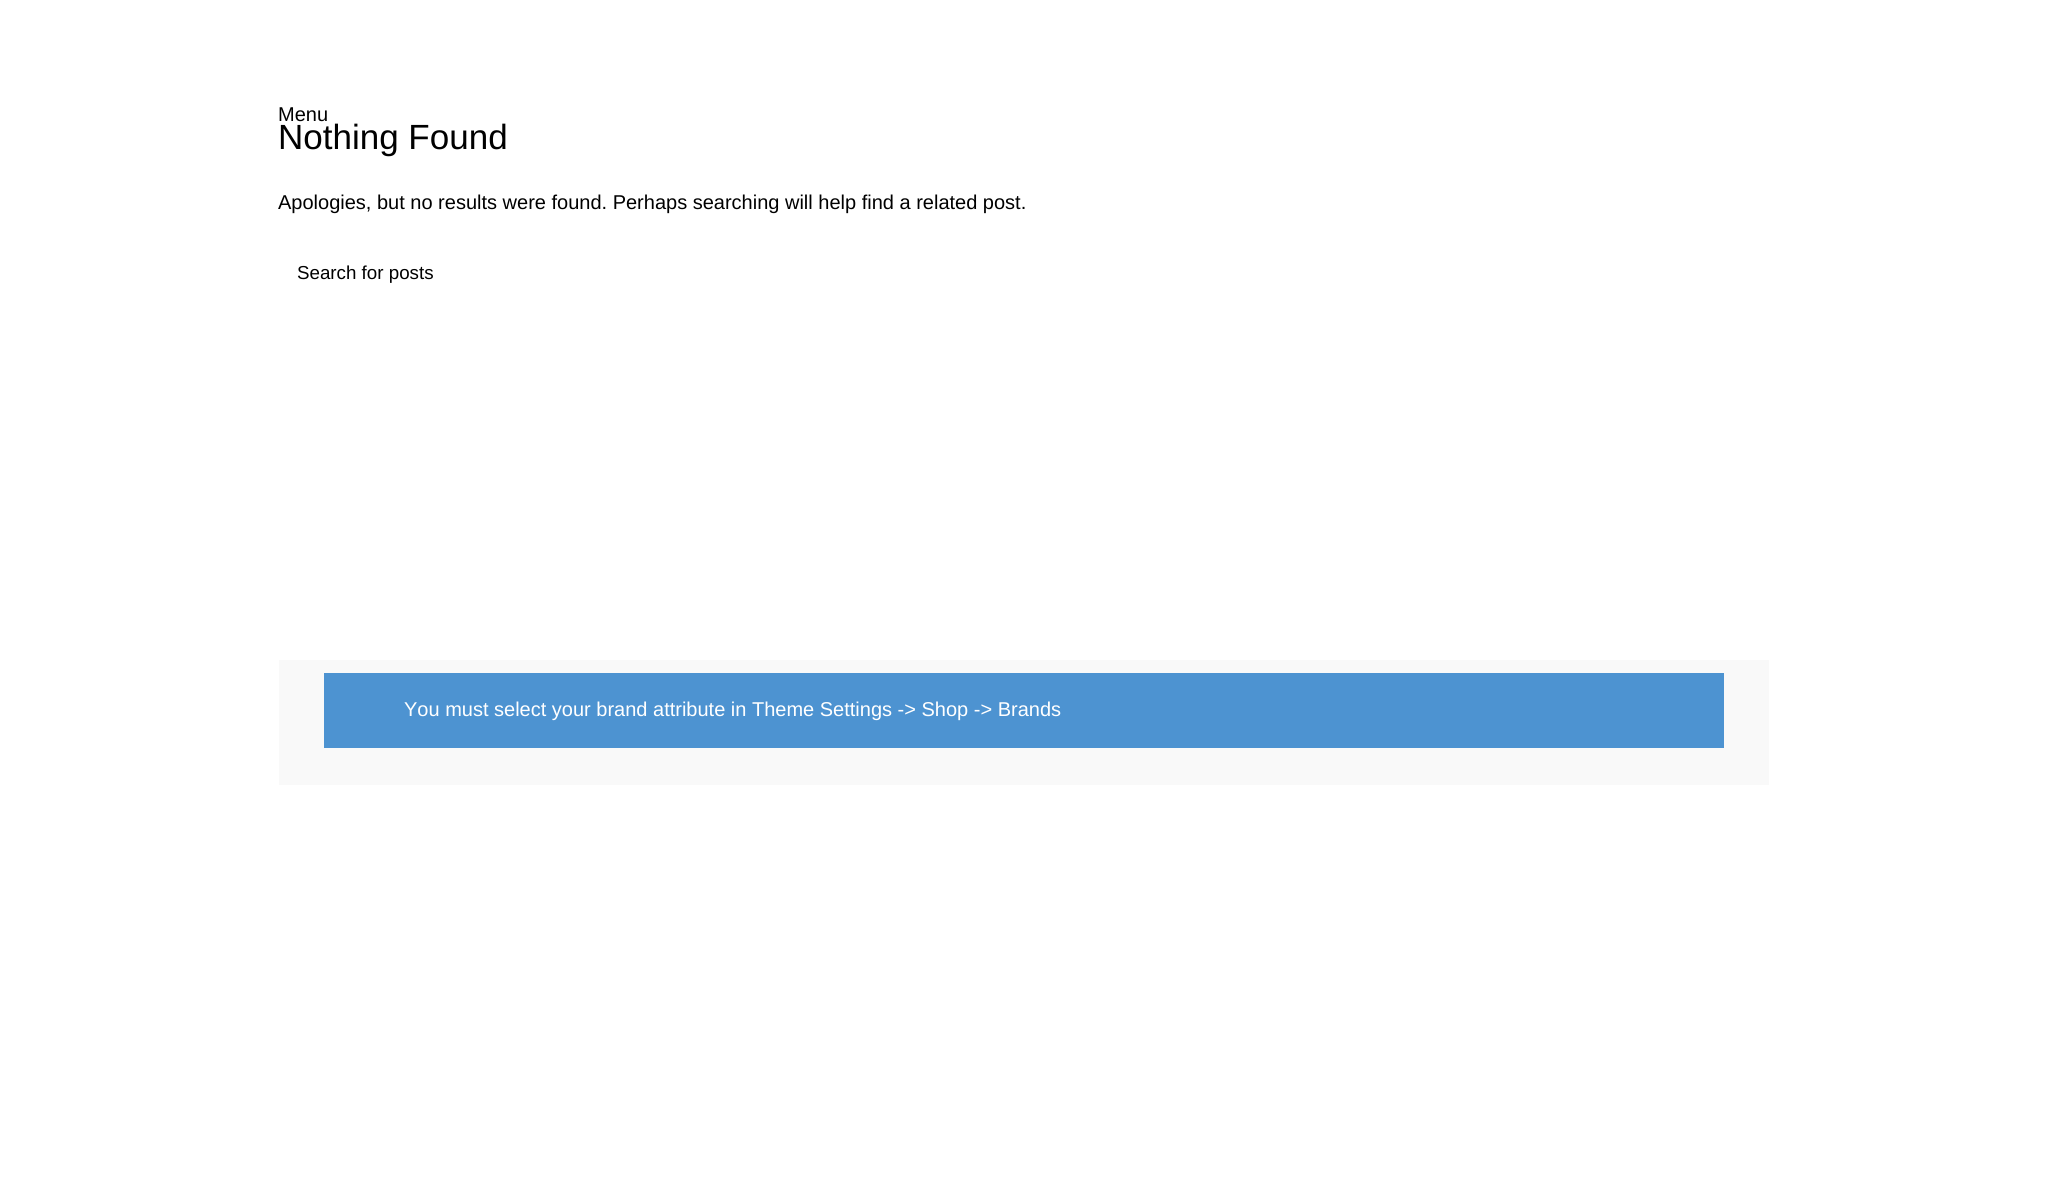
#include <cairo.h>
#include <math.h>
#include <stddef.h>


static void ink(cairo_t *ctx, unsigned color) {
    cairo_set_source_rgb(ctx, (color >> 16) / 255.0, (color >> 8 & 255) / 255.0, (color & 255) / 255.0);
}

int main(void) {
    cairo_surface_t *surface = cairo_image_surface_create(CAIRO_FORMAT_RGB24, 2046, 1194);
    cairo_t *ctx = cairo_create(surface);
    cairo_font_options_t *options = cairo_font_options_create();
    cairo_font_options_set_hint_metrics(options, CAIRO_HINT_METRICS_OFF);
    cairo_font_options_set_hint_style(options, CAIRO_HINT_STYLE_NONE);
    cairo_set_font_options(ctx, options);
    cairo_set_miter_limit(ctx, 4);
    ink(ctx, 0xFFFFFF);
    cairo_paint(ctx);
    cairo_select_font_face(ctx, "Liberation Sans", CAIRO_FONT_SLANT_NORMAL, CAIRO_FONT_WEIGHT_NORMAL);
    cairo_set_font_size(ctx, 20);
    ink(ctx, 0x000000);
    cairo_move_to(ctx, 278, 121);
    cairo_show_text(ctx, "Menu");
    cairo_set_font_size(ctx, 35);
    cairo_move_to(ctx, 278, 149);
    cairo_show_text(ctx, "Nothing Found");
    cairo_set_font_size(ctx, 20);
    cairo_move_to(ctx, 278, 209);
    cairo_show_text(ctx, "Apologies, but no results were found. Perhaps searching will help find a related post.");
    cairo_set_font_size(ctx, 18.75);
    cairo_move_to(ctx, 297, 279);
    cairo_show_text(ctx, "Search for posts");
    ink(ctx, 0xF9F9F9);
    cairo_rectangle(ctx, 279, 660, 1490, 125);
    cairo_fill(ctx);
    ink(ctx, 0x4D93D1);
    cairo_rectangle(ctx, 324, 673, 1400, 75);
    cairo_fill(ctx);
    cairo_set_font_size(ctx, 20);
    ink(ctx, 0xFFFFFF);
    cairo_move_to(ctx, 404, 716);
    cairo_show_text(ctx, "You must select your brand attribute in Theme Settings -> Shop -> Brands");
    cairo_surface_write_to_png(surface, "image.png");
    cairo_font_options_destroy(options);
    cairo_destroy(ctx);
    cairo_surface_destroy(surface);
    return 0;
}
